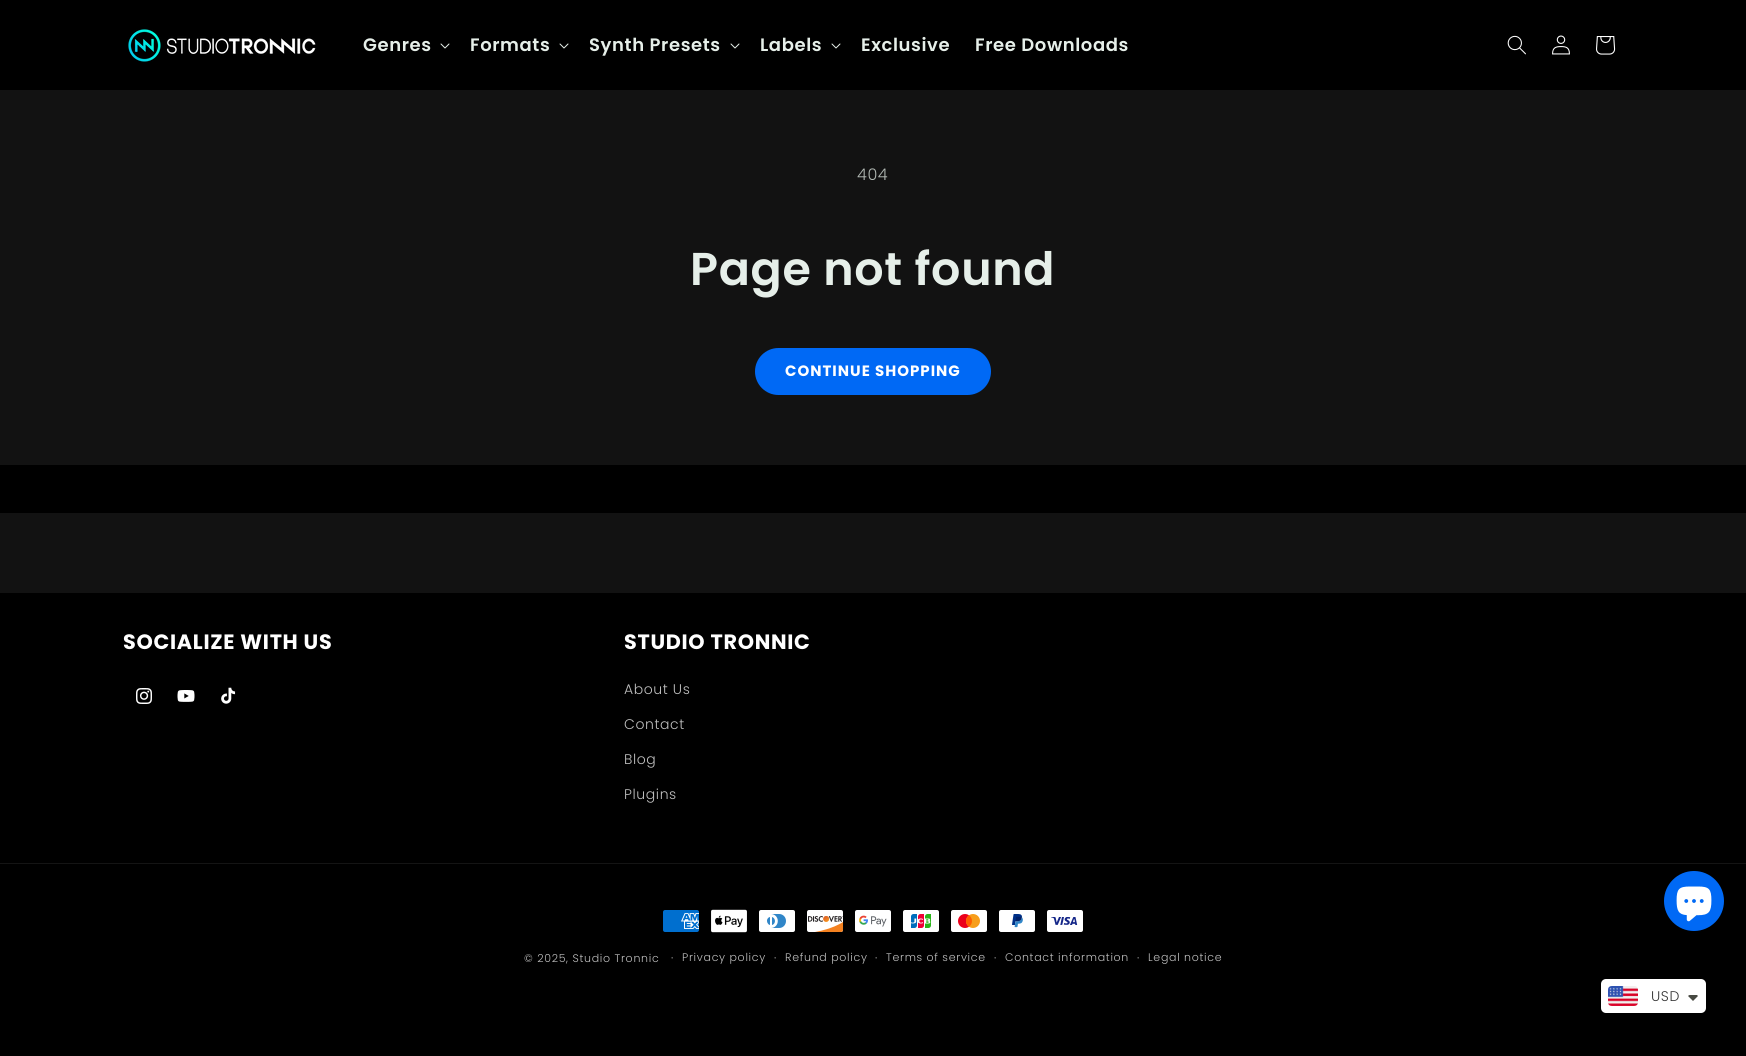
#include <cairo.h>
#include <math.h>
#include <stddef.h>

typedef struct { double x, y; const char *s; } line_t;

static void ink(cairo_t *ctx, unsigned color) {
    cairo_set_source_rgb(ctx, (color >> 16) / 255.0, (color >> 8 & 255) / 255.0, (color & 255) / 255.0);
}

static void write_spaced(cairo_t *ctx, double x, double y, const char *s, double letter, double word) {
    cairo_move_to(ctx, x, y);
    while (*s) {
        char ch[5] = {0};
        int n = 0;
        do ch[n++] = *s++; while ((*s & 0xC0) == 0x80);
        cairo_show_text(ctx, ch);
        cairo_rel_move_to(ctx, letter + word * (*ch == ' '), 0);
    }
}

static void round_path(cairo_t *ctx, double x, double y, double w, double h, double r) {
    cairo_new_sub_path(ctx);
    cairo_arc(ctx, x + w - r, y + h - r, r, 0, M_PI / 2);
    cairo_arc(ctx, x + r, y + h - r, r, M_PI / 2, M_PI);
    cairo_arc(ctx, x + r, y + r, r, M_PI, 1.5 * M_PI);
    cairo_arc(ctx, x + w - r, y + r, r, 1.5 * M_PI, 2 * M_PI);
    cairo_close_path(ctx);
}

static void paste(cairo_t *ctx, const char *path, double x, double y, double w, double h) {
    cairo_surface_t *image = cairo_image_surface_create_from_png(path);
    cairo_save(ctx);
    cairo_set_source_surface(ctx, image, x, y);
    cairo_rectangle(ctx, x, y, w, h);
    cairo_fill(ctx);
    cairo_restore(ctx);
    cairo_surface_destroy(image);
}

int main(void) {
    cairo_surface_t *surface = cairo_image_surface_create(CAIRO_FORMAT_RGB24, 1746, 1056);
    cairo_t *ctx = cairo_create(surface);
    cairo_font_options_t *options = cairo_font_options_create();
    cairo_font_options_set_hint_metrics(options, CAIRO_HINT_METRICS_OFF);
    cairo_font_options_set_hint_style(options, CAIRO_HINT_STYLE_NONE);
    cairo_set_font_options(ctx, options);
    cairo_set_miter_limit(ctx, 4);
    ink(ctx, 0x121212);
    cairo_paint(ctx);
    ink(ctx, 0x000000);
    cairo_rectangle(ctx, 0, 0, 1746, 90);
    cairo_fill(ctx);
    paste(ctx, "media/1.png", 128, 29, 188, 33);
    cairo_select_font_face(ctx, "Poppins SemiBold", CAIRO_FONT_SLANT_NORMAL, CAIRO_FONT_WEIGHT_NORMAL);
    cairo_set_font_size(ctx, 18);
    ink(ctx, 0xE6EFE9);
    write_spaced(ctx, 363, 51, "Genres", 0.6, 0);
    paste(ctx, "media/2.png", 440, 43, 10, 6);
    write_spaced(ctx, 470, 51, "Formats", 0.6, 0);
    paste(ctx, "media/2.png", 559, 43, 10, 6);
    write_spaced(ctx, 589, 51, "Synth Presets", 0.6, 0);
    paste(ctx, "media/2.png", 730, 43, 10, 6);
    write_spaced(ctx, 760, 51, "Labels", 0.6, 0);
    paste(ctx, "media/2.png", 831, 43, 10, 6);
    write_spaced(ctx, 861, 51, "Exclusive", 0.6, 0);
    write_spaced(ctx, 975, 51, "Free Downloads", 0.6, 0);
    paste(ctx, "media/3.png", 1507, 35, 19, 20);
    paste(ctx, "media/4.png", 1552, 35, 18, 20);
    paste(ctx, "media/5.png", 1596, 36, 20, 19);
    cairo_select_font_face(ctx, "Poppins Light", CAIRO_FONT_SLANT_NORMAL, CAIRO_FONT_WEIGHT_NORMAL);
    cairo_set_font_size(ctx, 16);
    ink(ctx, 0xB1B8B3);
    write_spaced(ctx, 857, 180, "404", 0.6, 0);
    cairo_select_font_face(ctx, "Poppins SemiBold", CAIRO_FONT_SLANT_NORMAL, CAIRO_FONT_WEIGHT_NORMAL);
    cairo_set_font_size(ctx, 46);
    ink(ctx, 0xE6EFE9);
    write_spaced(ctx, 690, 285, "Page not found", 0.7, 0);
    ink(ctx, 0x0069F5);
    round_path(ctx, 755, 348, 236, 47, 23.5);
    cairo_fill(ctx);
    cairo_select_font_face(ctx, "Poppins", CAIRO_FONT_SLANT_NORMAL, CAIRO_FONT_WEIGHT_BOLD);
    cairo_set_font_size(ctx, 15);
    ink(ctx, 0xFFFFFF);
    write_spaced(ctx, 785, 376, "CONTINUE SHOPPING", 1, 0);
    ink(ctx, 0x000000);
    cairo_rectangle(ctx, 0, 465, 1746, 48);
    cairo_fill(ctx);
    cairo_rectangle(ctx, 0, 593, 1746, 463);
    cairo_fill(ctx);
    cairo_set_font_size(ctx, 20.75);
    ink(ctx, 0xFFFFFF);
    write_spaced(ctx, 123, 649, "SOCIALIZE WITH US", 0.7, 0);
    paste(ctx, "media/6.png", 136, 688, 16, 16);
    paste(ctx, "media/7.png", 177, 690, 18, 12);
    paste(ctx, "media/8.png", 221, 687, 15, 17);
    write_spaced(ctx, 624, 649, "STUDIO TRONNIC", 0.7, 0);
    cairo_select_font_face(ctx, "Poppins Light", CAIRO_FONT_SLANT_NORMAL, CAIRO_FONT_WEIGHT_NORMAL);
    cairo_set_font_size(ctx, 14);
    ink(ctx, 0xBFBFBF);
    {
        static const line_t items[] = {
            {624, 694, "About Us"},
            {624, 729, "Contact"},
            {624, 764, "Blog"},
            {624, 799, "Plugins"},
        };
        for (size_t i = 0; i < sizeof items / sizeof *items; i++) {
            write_spaced(ctx, items[i].x, items[i].y, items[i].s, 0.6, 0);
        }
    }
    ink(ctx, 0x141414);
    cairo_rectangle(ctx, 0, 863, 1746, 1);
    cairo_fill(ctx);
    paste(ctx, "media/9.png", 663, 910, 36, 22);
    paste(ctx, "media/10.png", 711, 909, 36, 24);
    paste(ctx, "media/11.png", 759, 910, 36, 22);
    paste(ctx, "media/12.png", 807, 910, 37, 22);
    paste(ctx, "media/13.png", 855, 910, 36, 22);
    paste(ctx, "media/14.png", 903, 910, 36, 22);
    paste(ctx, "media/15.png", 951, 910, 36, 22);
    paste(ctx, "media/16.png", 999, 910, 36, 22);
    paste(ctx, "media/17.png", 1047, 910, 36, 22);
    cairo_set_font_size(ctx, 11);
    ink(ctx, 0xBFBFBF);
    write_spaced(ctx, 524, 962, "© 2025, Studio Tronnic", 0.7, 0);
    cairo_set_font_size(ctx, 12);
    write_spaced(ctx, 671, 962, "·", 0.7, 0);
    cairo_set_font_size(ctx, 11);
    write_spaced(ctx, 682, 961, "Privacy policy", 0.7, 0);
    cairo_set_font_size(ctx, 12);
    write_spaced(ctx, 774, 962, "·", 0.7, 0);
    cairo_set_font_size(ctx, 11);
    write_spaced(ctx, 785, 961, "Refund policy", 0.7, 0);
    cairo_set_font_size(ctx, 12);
    write_spaced(ctx, 875, 962, "·", 0.7, 0);
    cairo_set_font_size(ctx, 11);
    write_spaced(ctx, 886, 961, "Terms of service", 0.7, 0);
    cairo_set_font_size(ctx, 12);
    write_spaced(ctx, 994, 962, "·", 0.7, 0);
    cairo_set_font_size(ctx, 11);
    write_spaced(ctx, 1005, 961, "Contact information", 0.7, 0);
    cairo_set_font_size(ctx, 12);
    write_spaced(ctx, 1137, 962, "·", 0.7, 0);
    cairo_set_font_size(ctx, 11);
    write_spaced(ctx, 1148, 961, "Legal notice", 0.7, 0);
    ink(ctx, 0x0069F5);
    cairo_new_path(ctx);
    cairo_arc(ctx, 1694, 901, 30, 0, 2 * M_PI);
    cairo_fill(ctx);
    paste(ctx, "media/18.png", 1676, 886, 36, 36);
    ink(ctx, 0xFFFFFF);
    round_path(ctx, 1601, 979, 105, 34, 5);
    cairo_fill(ctx);
    paste(ctx, "media/19.png", 1608, 986, 30, 20);
    cairo_set_font_size(ctx, 14);
    ink(ctx, 0x333333);
    write_spaced(ctx, 1651, 1001, "USD", 0.6, 0);
    ink(ctx, 0x474942);
    cairo_new_path(ctx);
    cairo_move_to(ctx, 1690, 995);
    cairo_curve_to(ctx, 1689, 995, 1688.5, 995.5, 1688, 996);
    cairo_line_to(ctx, 1693, 1001);
    cairo_line_to(ctx, 1698, 996);
    cairo_line_to(ctx, 1697, 995);
    cairo_close_path(ctx);
    cairo_fill(ctx);
    cairo_surface_write_to_png(surface, "image.png");
    cairo_font_options_destroy(options);
    cairo_destroy(ctx);
    cairo_surface_destroy(surface);
    return 0;
}
